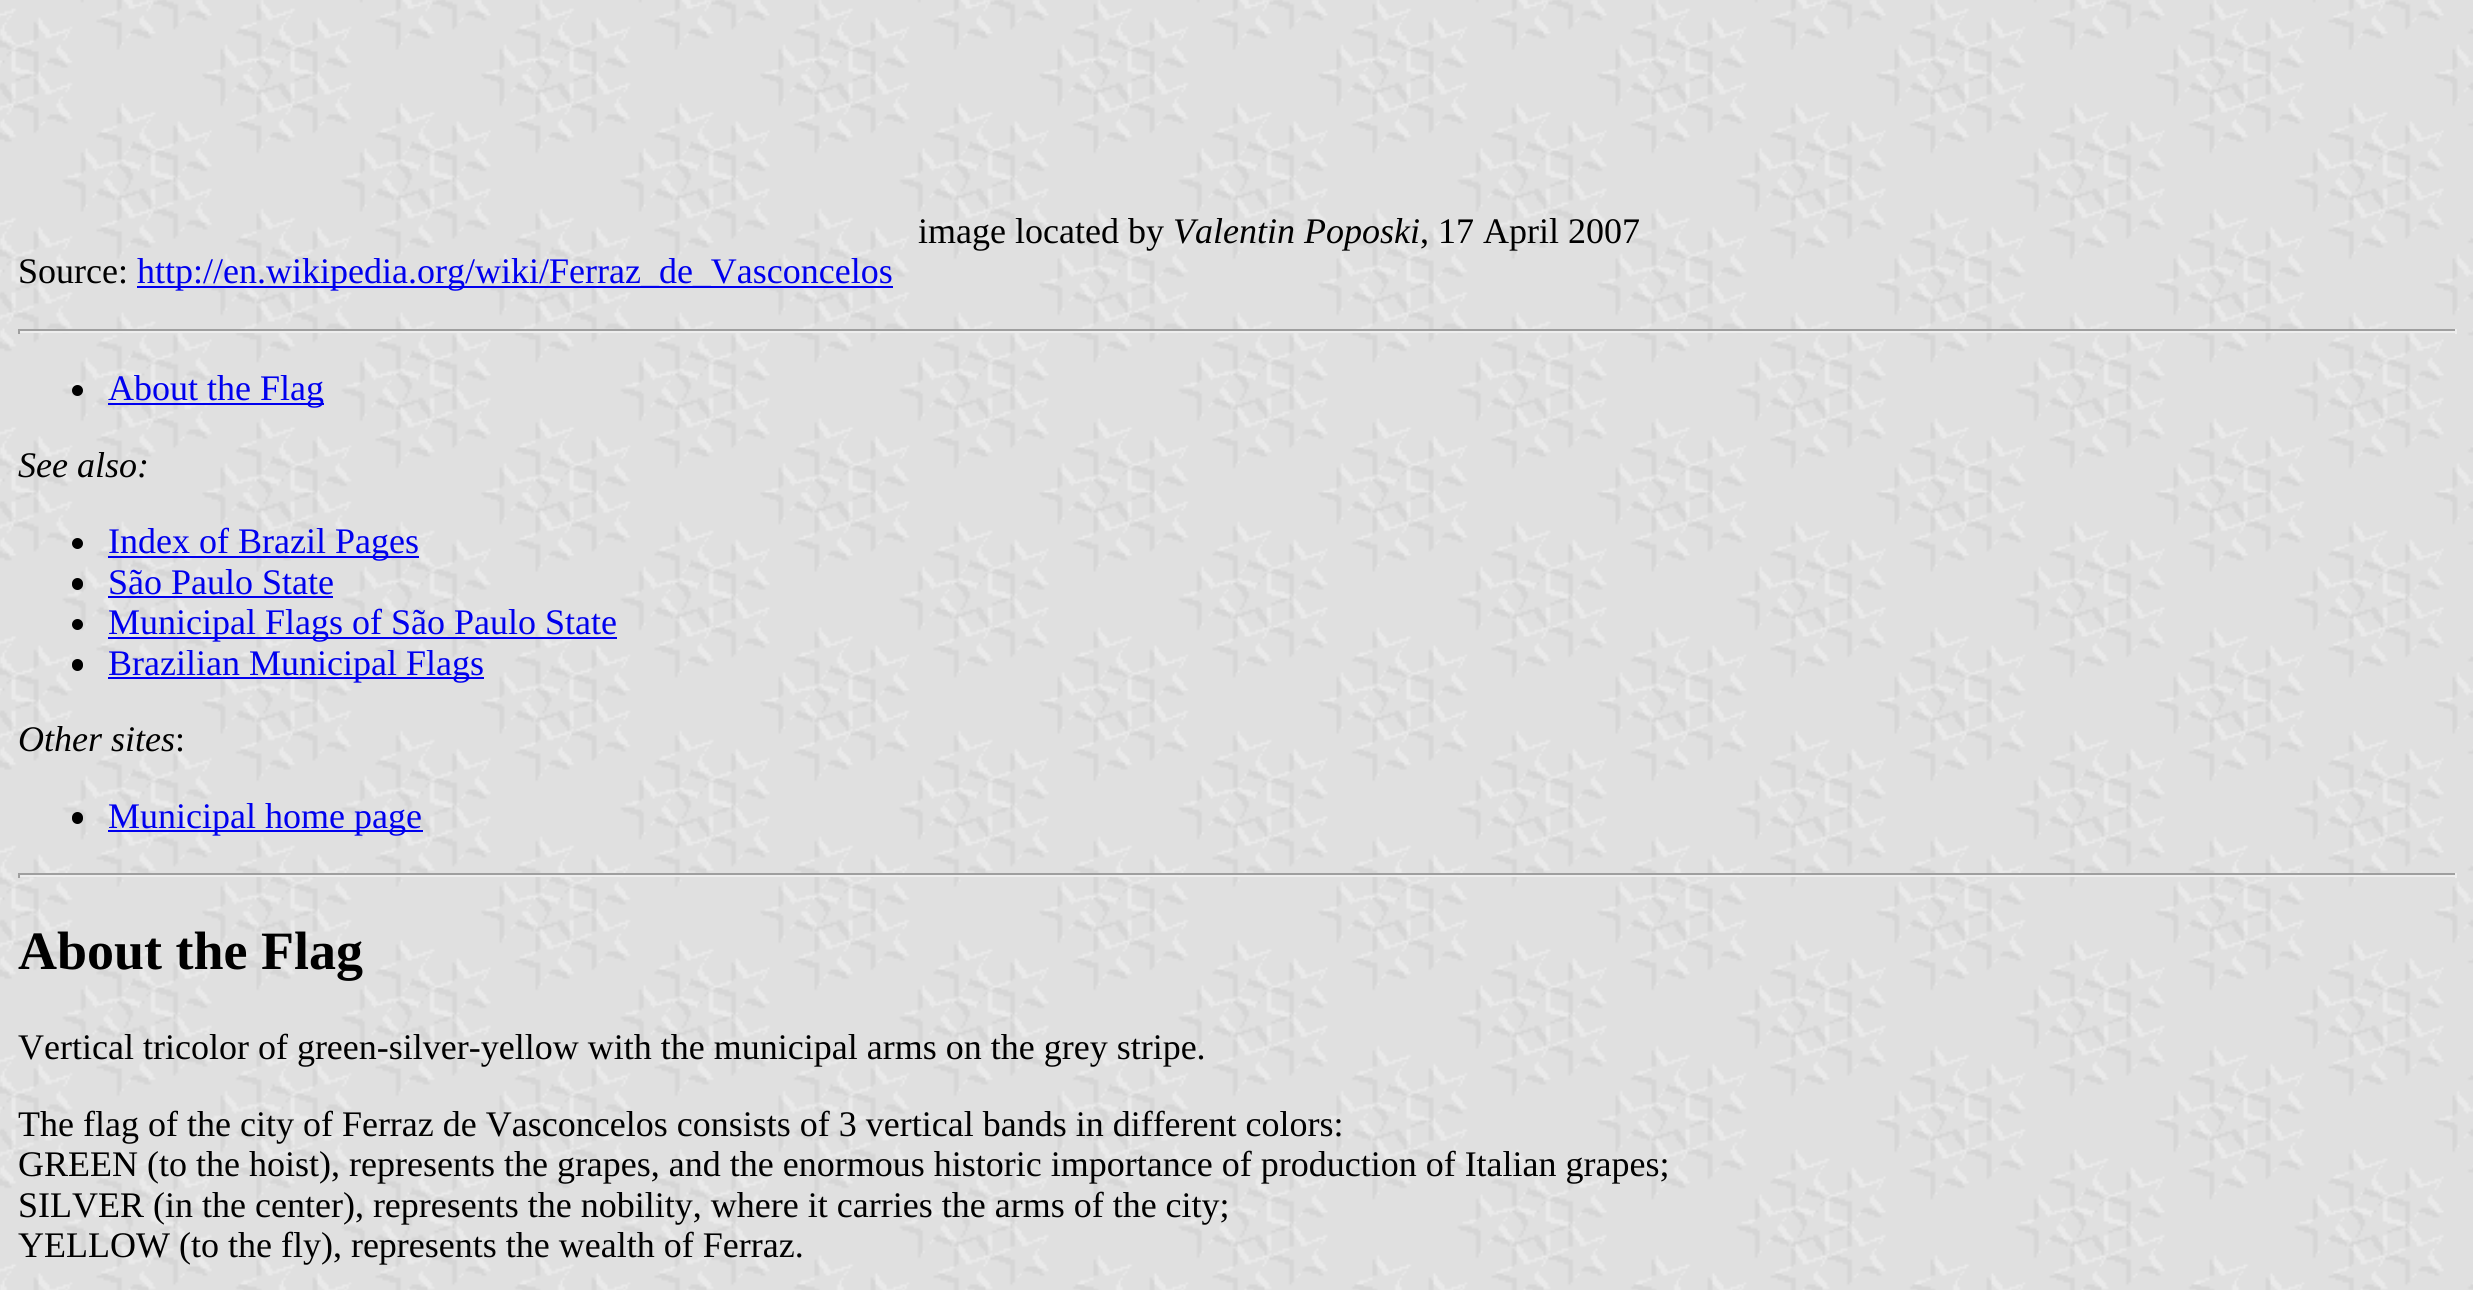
#include <cairo.h>
#include <math.h>
#include <stddef.h>

typedef struct { double x, y; const char *s; } line_t;
typedef struct { double x, y, w, h; unsigned color; } box_t;

static void ink(cairo_t *ctx, unsigned color) {
    cairo_set_source_rgb(ctx, (color >> 16) / 255.0, (color >> 8 & 255) / 255.0, (color & 255) / 255.0);
}

static void round_path(cairo_t *ctx, double x, double y, double w, double h, double r) {
    cairo_new_sub_path(ctx);
    cairo_arc(ctx, x + w - r, y + h - r, r, 0, M_PI / 2);
    cairo_arc(ctx, x + r, y + h - r, r, M_PI / 2, M_PI);
    cairo_arc(ctx, x + r, y + r, r, M_PI, 1.5 * M_PI);
    cairo_arc(ctx, x + w - r, y + r, r, 1.5 * M_PI, 2 * M_PI);
    cairo_close_path(ctx);
}

static void paste(cairo_t *ctx, const char *path, double x, double y, double w, double h) {
    cairo_surface_t *image = cairo_image_surface_create_from_png(path);
    cairo_save(ctx);
    cairo_set_source_surface(ctx, image, x, y);
    cairo_rectangle(ctx, x, y, w, h);
    cairo_fill(ctx);
    cairo_restore(ctx);
    cairo_surface_destroy(image);
}

int main(void) {
    cairo_surface_t *surface = cairo_image_surface_create(CAIRO_FORMAT_RGB24, 2473, 1290);
    cairo_t *ctx = cairo_create(surface);
    cairo_font_options_t *options = cairo_font_options_create();
    cairo_font_options_set_hint_metrics(options, CAIRO_HINT_METRICS_OFF);
    cairo_font_options_set_hint_style(options, CAIRO_HINT_STYLE_NONE);
    cairo_set_font_options(ctx, options);
    cairo_set_miter_limit(ctx, 4);
    ink(ctx, 0xFFFFFF);
    cairo_paint(ctx);
    paste(ctx, "media/1.png", 0, 0, 2473, 1290);
    cairo_select_font_face(ctx, "Liberation Serif", CAIRO_FONT_SLANT_NORMAL, CAIRO_FONT_WEIGHT_NORMAL);
    cairo_set_font_size(ctx, 36);
    ink(ctx, 0x000000);
    cairo_move_to(ctx, 918, 243);
    cairo_show_text(ctx, "image located by");
    cairo_select_font_face(ctx, "Liberation Serif", CAIRO_FONT_SLANT_ITALIC, CAIRO_FONT_WEIGHT_NORMAL);
    cairo_move_to(ctx, 1173, 243);
    cairo_show_text(ctx, "Valentin Poposki");
    cairo_select_font_face(ctx, "Liberation Serif", CAIRO_FONT_SLANT_NORMAL, CAIRO_FONT_WEIGHT_NORMAL);
    cairo_move_to(ctx, 1420, 243);
    cairo_show_text(ctx, ", 17 April 2007");
    cairo_move_to(ctx, 18, 283);
    cairo_show_text(ctx, "Source:");
    ink(ctx, 0x0000EE);
    cairo_rectangle(ctx, 137, 286, 756, 2);
    cairo_fill(ctx);
    cairo_move_to(ctx, 137, 283);
    cairo_show_text(ctx, "http://en.wikipedia.org/wiki/Ferraz_de_Vasconcelos");
    {
        static const box_t items[] = {
            {18, 329, 2439, 2, 0x9F9F9F},
            {2455, 329, 2, 5, 0xEEEEEE},
            {18, 331, 2439, 2, 0xEEEEEE},
            {18, 329, 2, 5, 0x9F9F9F},
        };
        for (size_t i = 0; i < sizeof items / sizeof *items; i++) {
            ink(ctx, items[i].color);
            cairo_rectangle(ctx, items[i].x, items[i].y, items[i].w, items[i].h);
            cairo_fill(ctx);
        }
    }
    ink(ctx, 0x000000);
    cairo_new_path(ctx);
    cairo_arc(ctx, 77.5, 390.5, 5.5, 0, 2 * M_PI);
    cairo_fill(ctx);
    ink(ctx, 0x0000EE);
    cairo_rectangle(ctx, 108, 403, 216, 2);
    cairo_fill(ctx);
    cairo_move_to(ctx, 108, 400);
    cairo_show_text(ctx, "About the Flag");
    cairo_select_font_face(ctx, "Liberation Serif", CAIRO_FONT_SLANT_ITALIC, CAIRO_FONT_WEIGHT_NORMAL);
    ink(ctx, 0x000000);
    cairo_move_to(ctx, 18, 477);
    cairo_show_text(ctx, "See also:");
    cairo_new_path(ctx);
    cairo_arc(ctx, 77.5, 543.5, 5.5, 0, 2 * M_PI);
    cairo_fill(ctx);
    ink(ctx, 0x0000EE);
    cairo_rectangle(ctx, 108, 556, 311, 2);
    cairo_fill(ctx);
    cairo_select_font_face(ctx, "Liberation Serif", CAIRO_FONT_SLANT_NORMAL, CAIRO_FONT_WEIGHT_NORMAL);
    cairo_move_to(ctx, 108, 553);
    cairo_show_text(ctx, "Index of Brazil Pages");
    ink(ctx, 0x000000);
    round_path(ctx, 72, 578, 11, 12, 5.5);
    cairo_fill(ctx);
    ink(ctx, 0x0000EE);
    cairo_move_to(ctx, 108, 594);
    cairo_show_text(ctx, "São Paulo State");
    cairo_rectangle(ctx, 108, 596, 225, 2);
    cairo_fill(ctx);
    ink(ctx, 0x000000);
    cairo_arc(ctx, 77.5, 624.5, 5.5, 0, 2 * M_PI);
    cairo_fill(ctx);
    ink(ctx, 0x0000EE);
    cairo_rectangle(ctx, 108, 637, 509, 2);
    cairo_fill(ctx);
    cairo_move_to(ctx, 108, 634);
    cairo_show_text(ctx, "Municipal Flags of São Paulo State");
    ink(ctx, 0x000000);
    round_path(ctx, 72, 659, 11, 12, 5.5);
    cairo_fill(ctx);
    ink(ctx, 0x0000EE);
    cairo_rectangle(ctx, 108, 677, 376, 2);
    cairo_fill(ctx);
    cairo_move_to(ctx, 108, 675);
    cairo_show_text(ctx, "Brazilian Municipal Flags");
    cairo_select_font_face(ctx, "Liberation Serif", CAIRO_FONT_SLANT_ITALIC, CAIRO_FONT_WEIGHT_NORMAL);
    ink(ctx, 0x000000);
    cairo_move_to(ctx, 18, 751);
    cairo_show_text(ctx, "Other sites");
    cairo_select_font_face(ctx, "Liberation Serif", CAIRO_FONT_SLANT_NORMAL, CAIRO_FONT_WEIGHT_NORMAL);
    cairo_move_to(ctx, 175, 751);
    cairo_show_text(ctx, ":");
    round_path(ctx, 72, 812, 11, 12, 5.5);
    cairo_fill(ctx);
    ink(ctx, 0x0000EE);
    cairo_rectangle(ctx, 108, 830, 315, 2);
    cairo_fill(ctx);
    cairo_move_to(ctx, 108, 828);
    cairo_show_text(ctx, "Municipal home page");
    {
        static const box_t items[] = {
            {18, 873, 2439, 2, 0x9F9F9F},
            {2455, 873, 2, 5, 0xEEEEEE},
            {18, 875, 2439, 2, 0xEEEEEE},
            {18, 873, 2, 5, 0x9F9F9F},
        };
        for (size_t i = 0; i < sizeof items / sizeof *items; i++) {
            ink(ctx, items[i].color);
            cairo_rectangle(ctx, items[i].x, items[i].y, items[i].w, items[i].h);
            cairo_fill(ctx);
        }
    }
    cairo_select_font_face(ctx, "Liberation Serif", CAIRO_FONT_SLANT_NORMAL, CAIRO_FONT_WEIGHT_BOLD);
    cairo_set_font_size(ctx, 54);
    ink(ctx, 0x000000);
    cairo_move_to(ctx, 18, 969);
    cairo_show_text(ctx, "About the Flag");
    cairo_select_font_face(ctx, "Liberation Serif", CAIRO_FONT_SLANT_NORMAL, CAIRO_FONT_WEIGHT_NORMAL);
    cairo_set_font_size(ctx, 36);
    {
        static const line_t items[] = {
            {18, 1059, "Vertical tricolor of green-silver-yellow with the municipal arms on the grey stripe."},
            {18, 1136, "The flag of the city of Ferraz de Vasconcelos consists of 3 vertical bands in different colors:"},
            {18, 1176, "GREEN (to the hoist), represents the grapes, and the enormous historic importance of production of Italian grapes;"},
            {18, 1217, "SILVER (in the center), represents the nobility, where it carries the arms of the city;"},
            {18, 1257, "YELLOW (to the fly), represents the wealth of Ferraz."},
        };
        for (size_t i = 0; i < sizeof items / sizeof *items; i++) {
            cairo_move_to(ctx, items[i].x, items[i].y);
            cairo_show_text(ctx, items[i].s);
        }
    }
    cairo_surface_write_to_png(surface, "image.png");
    cairo_font_options_destroy(options);
    cairo_destroy(ctx);
    cairo_surface_destroy(surface);
    return 0;
}
